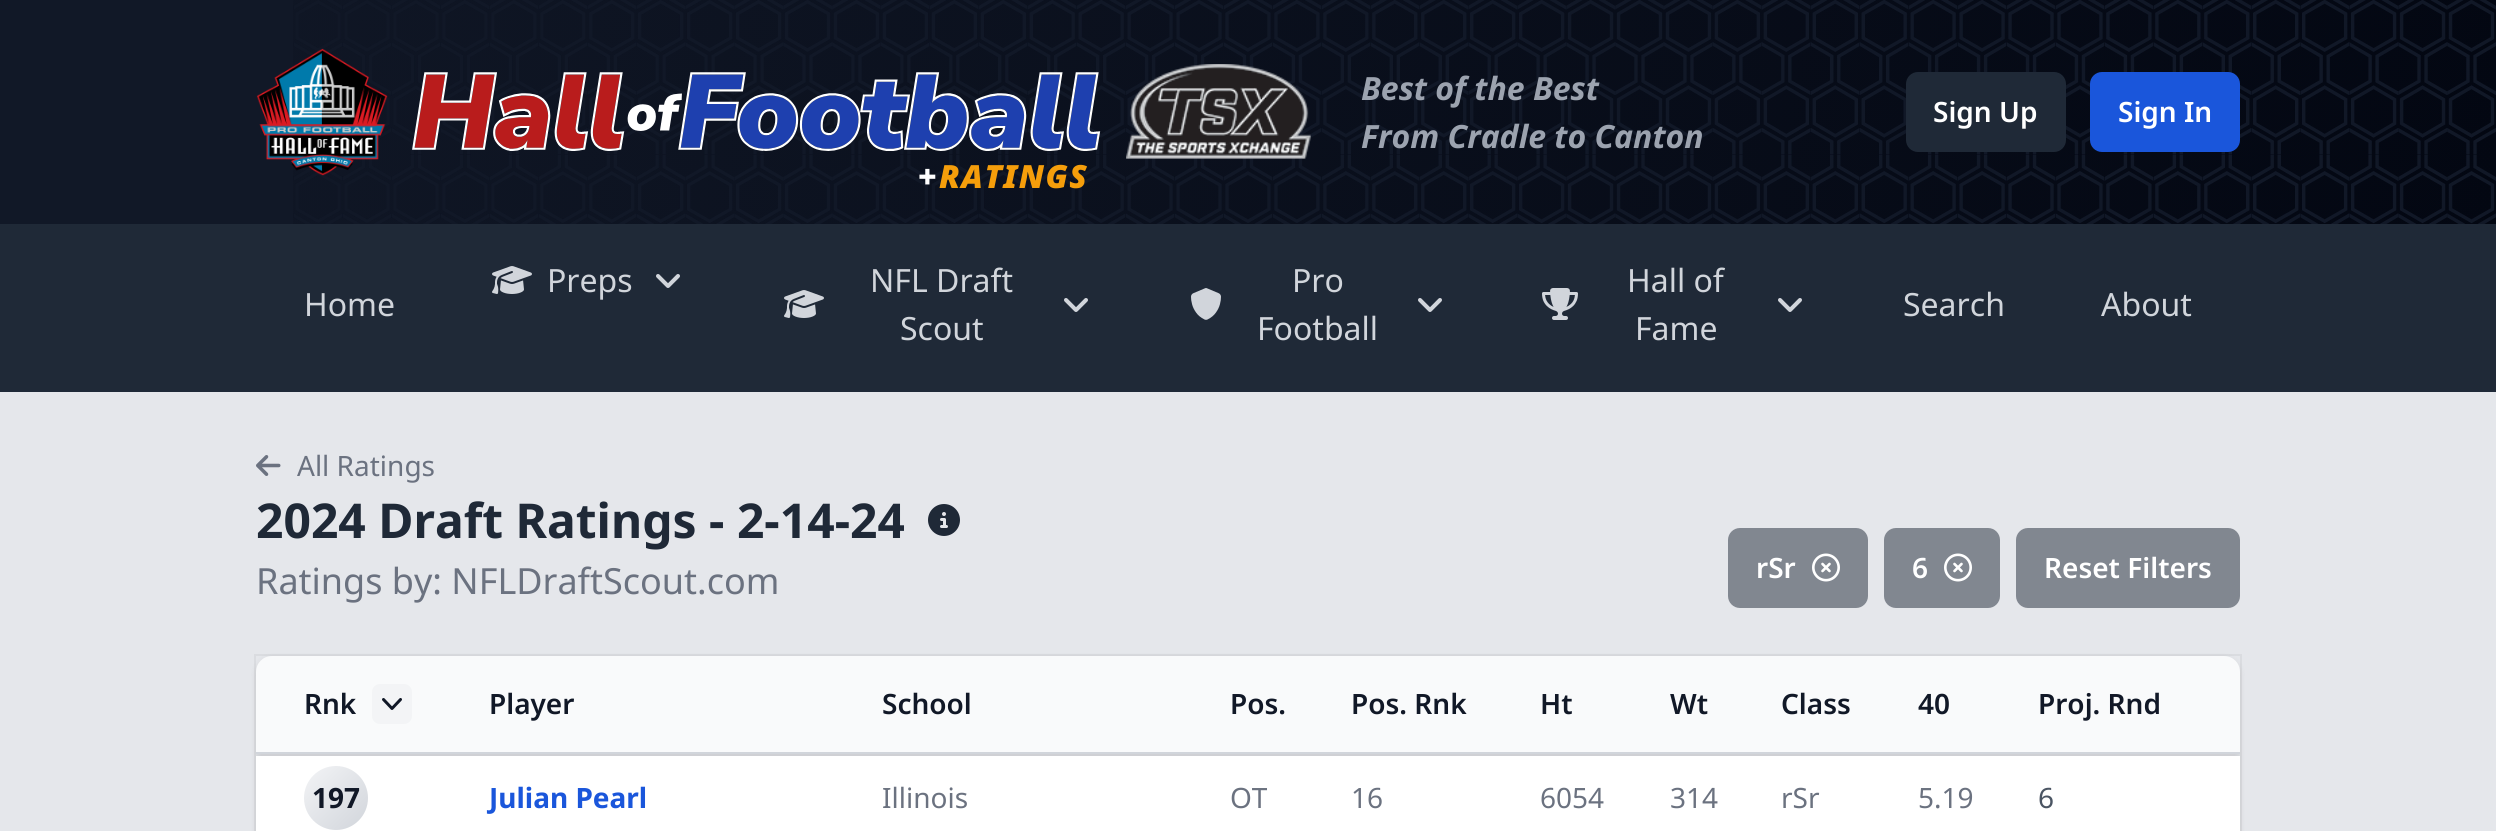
#include <cairo.h>
#include <math.h>
#include <stddef.h>

typedef struct { double x, y; const char *s; } line_t;

static void ink(cairo_t *ctx, unsigned color) {
    cairo_set_source_rgb(ctx, (color >> 16) / 255.0, (color >> 8 & 255) / 255.0, (color & 255) / 255.0);
}

static void write_spaced(cairo_t *ctx, double x, double y, const char *s, double letter, double word) {
    cairo_move_to(ctx, x, y);
    while (*s) {
        char ch[5] = {0};
        int n = 0;
        do ch[n++] = *s++; while ((*s & 0xC0) == 0x80);
        cairo_show_text(ctx, ch);
        cairo_rel_move_to(ctx, letter + word * (*ch == ' '), 0);
    }
}

static void round_path(cairo_t *ctx, double x, double y, double w, double h, double r) {
    cairo_new_sub_path(ctx);
    cairo_arc(ctx, x + w - r, y + h - r, r, 0, M_PI / 2);
    cairo_arc(ctx, x + r, y + h - r, r, M_PI / 2, M_PI);
    cairo_arc(ctx, x + r, y + r, r, M_PI, 1.5 * M_PI);
    cairo_arc(ctx, x + w - r, y + r, r, 1.5 * M_PI, 2 * M_PI);
    cairo_close_path(ctx);
}

static void blur_box(cairo_t *ctx, double x, double y, double w, double h, double r, double blur, double alpha) {
    cairo_push_group_with_content(ctx, CAIRO_CONTENT_ALPHA);
    cairo_set_operator(ctx, CAIRO_OPERATOR_SOURCE);
    for (int i = 15; i >= -15 && fmin(w, h) + blur * i / 3 > 0; i -= 2) {
        double e = blur * i / 6;
        cairo_set_source_rgba(ctx, 0, 0, 0, alpha * erfc((i - 1) / 8.5) / 2);
        round_path(ctx, x - e, y - e, w + 2 * e, h + 2 * e, fmax(0, fmin(r + e + blur * .6, fmin(w, h) / 2 + e)));
        cairo_fill(ctx);
    }
    cairo_pattern_t *soft = cairo_pop_group(ctx);
    cairo_mask(ctx, soft);
    cairo_pattern_destroy(soft);
}

static void paste(cairo_t *ctx, const char *path, double x, double y, double w, double h) {
    cairo_surface_t *image = cairo_image_surface_create_from_png(path);
    cairo_save(ctx);
    cairo_set_source_surface(ctx, image, x, y);
    cairo_rectangle(ctx, x, y, w, h);
    cairo_fill(ctx);
    cairo_restore(ctx);
    cairo_surface_destroy(image);
}

int main(void) {
    cairo_surface_t *surface = cairo_image_surface_create(CAIRO_FORMAT_RGB24, 2496, 831);
    cairo_t *ctx = cairo_create(surface);
    cairo_font_options_t *options = cairo_font_options_create();
    cairo_font_options_set_hint_metrics(options, CAIRO_HINT_METRICS_OFF);
    cairo_font_options_set_hint_style(options, CAIRO_HINT_STYLE_NONE);
    cairo_set_font_options(ctx, options);
    cairo_set_miter_limit(ctx, 4);
    cairo_pattern_t *gradient;
    ink(ctx, 0x111827);
    cairo_paint(ctx);
    paste(ctx, "media/1.png", 293, 0, 2203, 224);
    cairo_select_font_face(ctx, "Noto Sans", CAIRO_FONT_SLANT_ITALIC, CAIRO_FONT_WEIGHT_BOLD);
    cairo_set_font_size(ctx, 32);
    ink(ctx, 0x9CA3AF);
    cairo_move_to(ctx, 1361, 100);
    cairo_show_text(ctx, "Best of the Best");
    cairo_move_to(ctx, 1361, 148);
    cairo_show_text(ctx, "From Cradle to Canton");
    ink(ctx, 0x1F2937);
    round_path(ctx, 1906, 72, 160, 80, 12);
    cairo_fill(ctx);
    cairo_select_font_face(ctx, "Noto Sans SemiBold", CAIRO_FONT_SLANT_NORMAL, CAIRO_FONT_WEIGHT_NORMAL);
    cairo_set_font_size(ctx, 28);
    ink(ctx, 0xFFFFFF);
    cairo_move_to(ctx, 1933, 122);
    cairo_show_text(ctx, "Sign Up");
    ink(ctx, 0x1A56DB);
    round_path(ctx, 2090, 72, 150, 80, 12);
    cairo_fill(ctx);
    ink(ctx, 0xFFFFFF);
    cairo_move_to(ctx, 2118, 122);
    cairo_show_text(ctx, "Sign In");
    paste(ctx, "media/2.png", 256, 48, 132, 128);
    paste(ctx, "media/3.png", 412, 72, 689, 79);
    paste(ctx, "media/4.png", 1126, 64, 185, 95);
    cairo_select_font_face(ctx, "Noto Sans Black", CAIRO_FONT_SLANT_ITALIC, CAIRO_FONT_WEIGHT_NORMAL);
    cairo_set_font_size(ctx, 32);
    write_spaced(ctx, 918, 188, "+", 1.5, 0);
    ink(ctx, 0xF59E0B);
    write_spaced(ctx, 939, 188, "RATINGS", 1.5, 0);
    ink(ctx, 0x1F2937);
    cairo_rectangle(ctx, 0, 224, 2496, 168);
    cairo_fill(ctx);
    cairo_select_font_face(ctx, "Noto Sans", CAIRO_FONT_SLANT_NORMAL, CAIRO_FONT_WEIGHT_NORMAL);
    ink(ctx, 0xD1D5DB);
    cairo_move_to(ctx, 304, 316);
    cairo_show_text(ctx, "Home");
    paste(ctx, "media/5.png", 492, 266, 40, 28);
    cairo_move_to(ctx, 547, 292);
    cairo_show_text(ctx, "Preps");
    paste(ctx, "media/6.png", 656, 274, 24, 14);
    cairo_move_to(ctx, 870, 292);
    cairo_show_text(ctx, "NFL Draft");
    paste(ctx, "media/5.png", 784, 290, 40, 28);
    paste(ctx, "media/6.png", 1064, 298, 24, 14);
    cairo_move_to(ctx, 900, 340);
    cairo_show_text(ctx, "Scout");
    cairo_move_to(ctx, 1292, 292);
    cairo_show_text(ctx, "Pro");
    paste(ctx, "media/7.png", 1191, 288, 30, 32);
    paste(ctx, "media/6.png", 1418, 298, 24, 14);
    cairo_move_to(ctx, 1257, 340);
    cairo_show_text(ctx, "Football");
    cairo_move_to(ctx, 1627, 292);
    cairo_show_text(ctx, "Hall of");
    paste(ctx, "media/8.png", 1542, 288, 36, 32);
    paste(ctx, "media/6.png", 1778, 298, 24, 14);
    {
        static const line_t items[] = {
            {1635, 340, "Fame"},
            {1903, 316, "Search"},
            {2101, 316, "About"},
        };
        for (size_t i = 0; i < sizeof items / sizeof *items; i++) {
            cairo_move_to(ctx, items[i].x, items[i].y);
            cairo_show_text(ctx, items[i].s);
        }
    }
    ink(ctx, 0xE5E7EB);
    cairo_rectangle(ctx, 0, 392, 2496, 439);
    cairo_fill(ctx);
    paste(ctx, "media/9.png", 256, 455, 25, 21);
    cairo_set_font_size(ctx, 28);
    ink(ctx, 0x6B7280);
    cairo_move_to(ctx, 297, 476);
    cairo_show_text(ctx, "All Ratings");
    cairo_select_font_face(ctx, "Noto Sans", CAIRO_FONT_SLANT_NORMAL, CAIRO_FONT_WEIGHT_BOLD);
    cairo_set_font_size(ctx, 48);
    ink(ctx, 0x1F2937);
    cairo_move_to(ctx, 256, 538);
    cairo_show_text(ctx, "2024 Draft Ratings - 2-14-24");
    paste(ctx, "media/10.png", 928, 504, 32, 32);
    cairo_select_font_face(ctx, "Noto Sans", CAIRO_FONT_SLANT_NORMAL, CAIRO_FONT_WEIGHT_NORMAL);
    cairo_set_font_size(ctx, 36);
    ink(ctx, 0x6B7280);
    cairo_move_to(ctx, 256, 594);
    cairo_show_text(ctx, "Ratings by: NFLDraftScout.com");
    cairo_set_source_rgba(ctx, 0.122, 0.161, 0.216, 0.5);
    round_path(ctx, 1728, 528, 140, 80, 12);
    cairo_fill(ctx);
    cairo_select_font_face(ctx, "Noto Sans SemiBold", CAIRO_FONT_SLANT_NORMAL, CAIRO_FONT_WEIGHT_NORMAL);
    cairo_set_font_size(ctx, 28);
    ink(ctx, 0xFFFFFF);
    cairo_move_to(ctx, 1756, 578);
    cairo_show_text(ctx, "rSr");
    paste(ctx, "media/11.png", 1812, 553, 28, 29);
    cairo_set_source_rgba(ctx, 0.122, 0.161, 0.216, 0.5);
    round_path(ctx, 1884, 528, 116, 80, 12);
    cairo_fill(ctx);
    ink(ctx, 0xFFFFFF);
    cairo_move_to(ctx, 1912, 578);
    cairo_show_text(ctx, "6");
    paste(ctx, "media/11.png", 1944, 553, 28, 29);
    cairo_set_source_rgba(ctx, 0.122, 0.161, 0.216, 0.5);
    round_path(ctx, 2016, 528, 224, 80, 12);
    cairo_fill(ctx);
    ink(ctx, 0xFFFFFF);
    cairo_move_to(ctx, 2044, 578);
    cairo_show_text(ctx, "Reset Filters");
    ink(ctx, 0x000000);
    blur_box(ctx, 256, 658, 1984, 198, 16, 3, 0.1);
    cairo_rectangle(ctx, 255, 655, 1986, 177);
    cairo_set_source_rgba(ctx, 0, 0, 0, 0.05);
    cairo_stroke(ctx);
    ink(ctx, 0xF9FAFB);
    cairo_new_path(ctx);
    cairo_move_to(ctx, 272, 656);
    cairo_line_to(ctx, 2224, 656);
    cairo_curve_to(ctx, 2233, 656, 2240, 663, 2240, 672);
    cairo_line_to(ctx, 2240, 754);
    cairo_line_to(ctx, 256, 754);
    cairo_line_to(ctx, 256, 672);
    cairo_curve_to(ctx, 256, 663, 263, 656, 272, 656);
    cairo_close_path(ctx);
    cairo_fill(ctx);
    ink(ctx, 0x111827);
    cairo_move_to(ctx, 304, 714);
    cairo_show_text(ctx, "Rnk");
    ink(ctx, 0xF3F4F6);
    round_path(ctx, 372, 684, 40, 40, 8);
    cairo_fill(ctx);
    paste(ctx, "media/12.png", 382, 698, 20, 12);
    ink(ctx, 0x111827);
    {
        static const line_t items[] = {
            {489, 714, "Player"},
            {882, 714, "School"},
            {1230, 714, "Pos."},
            {1351, 714, "Pos. Rnk"},
            {1540, 714, "Ht"},
            {1670, 714, "Wt"},
            {1781, 714, "Class"},
            {1918, 714, "40"},
            {2038, 714, "Proj. Rnd"},
        };
        for (size_t i = 0; i < sizeof items / sizeof *items; i++) {
            cairo_move_to(ctx, items[i].x, items[i].y);
            cairo_show_text(ctx, items[i].s);
        }
    }
    ink(ctx, 0xFFFFFF);
    cairo_rectangle(ctx, 256, 756, 1984, 75);
    cairo_fill(ctx);
    ink(ctx, 0xD1D5DB);
    cairo_rectangle(ctx, 256, 752, 1984, 2);
    cairo_fill(ctx);
    gradient = cairo_pattern_create_linear(304, 766, 368, 830);
    cairo_pattern_add_color_stop_rgba(gradient, 0, 0.953, 0.957, 0.965, 1);
    cairo_pattern_add_color_stop_rgba(gradient, 1, 0.82, 0.835, 0.859, 1);
    cairo_set_source(ctx, gradient);
    cairo_pattern_destroy(gradient);
    cairo_arc(ctx, 336, 798, 32, 0, 2 * M_PI);
    cairo_fill(ctx);
    cairo_select_font_face(ctx, "Noto Sans", CAIRO_FONT_SLANT_NORMAL, CAIRO_FONT_WEIGHT_BOLD);
    ink(ctx, 0x111827);
    cairo_move_to(ctx, 312, 808);
    cairo_show_text(ctx, "197");
    ink(ctx, 0x1A56DB);
    cairo_move_to(ctx, 489, 808);
    cairo_show_text(ctx, "Julian Pearl");
    cairo_select_font_face(ctx, "Noto Sans", CAIRO_FONT_SLANT_NORMAL, CAIRO_FONT_WEIGHT_NORMAL);
    ink(ctx, 0x6B7280);
    {
        static const line_t items[] = {
            {882, 808, "Illinois"},
            {1230, 808, "OT"},
            {1351, 808, "16"},
            {1540, 808, "6054"},
            {1670, 808, "314"},
            {1781, 808, "rSr"},
            {1918, 808, "5.19"},
        };
        for (size_t i = 0; i < sizeof items / sizeof *items; i++) {
            cairo_move_to(ctx, items[i].x, items[i].y);
            cairo_show_text(ctx, items[i].s);
        }
    }
    ink(ctx, 0x4B5563);
    cairo_move_to(ctx, 2038, 808);
    cairo_show_text(ctx, "6");
    cairo_surface_write_to_png(surface, "image.png");
    cairo_font_options_destroy(options);
    cairo_destroy(ctx);
    cairo_surface_destroy(surface);
    return 0;
}
